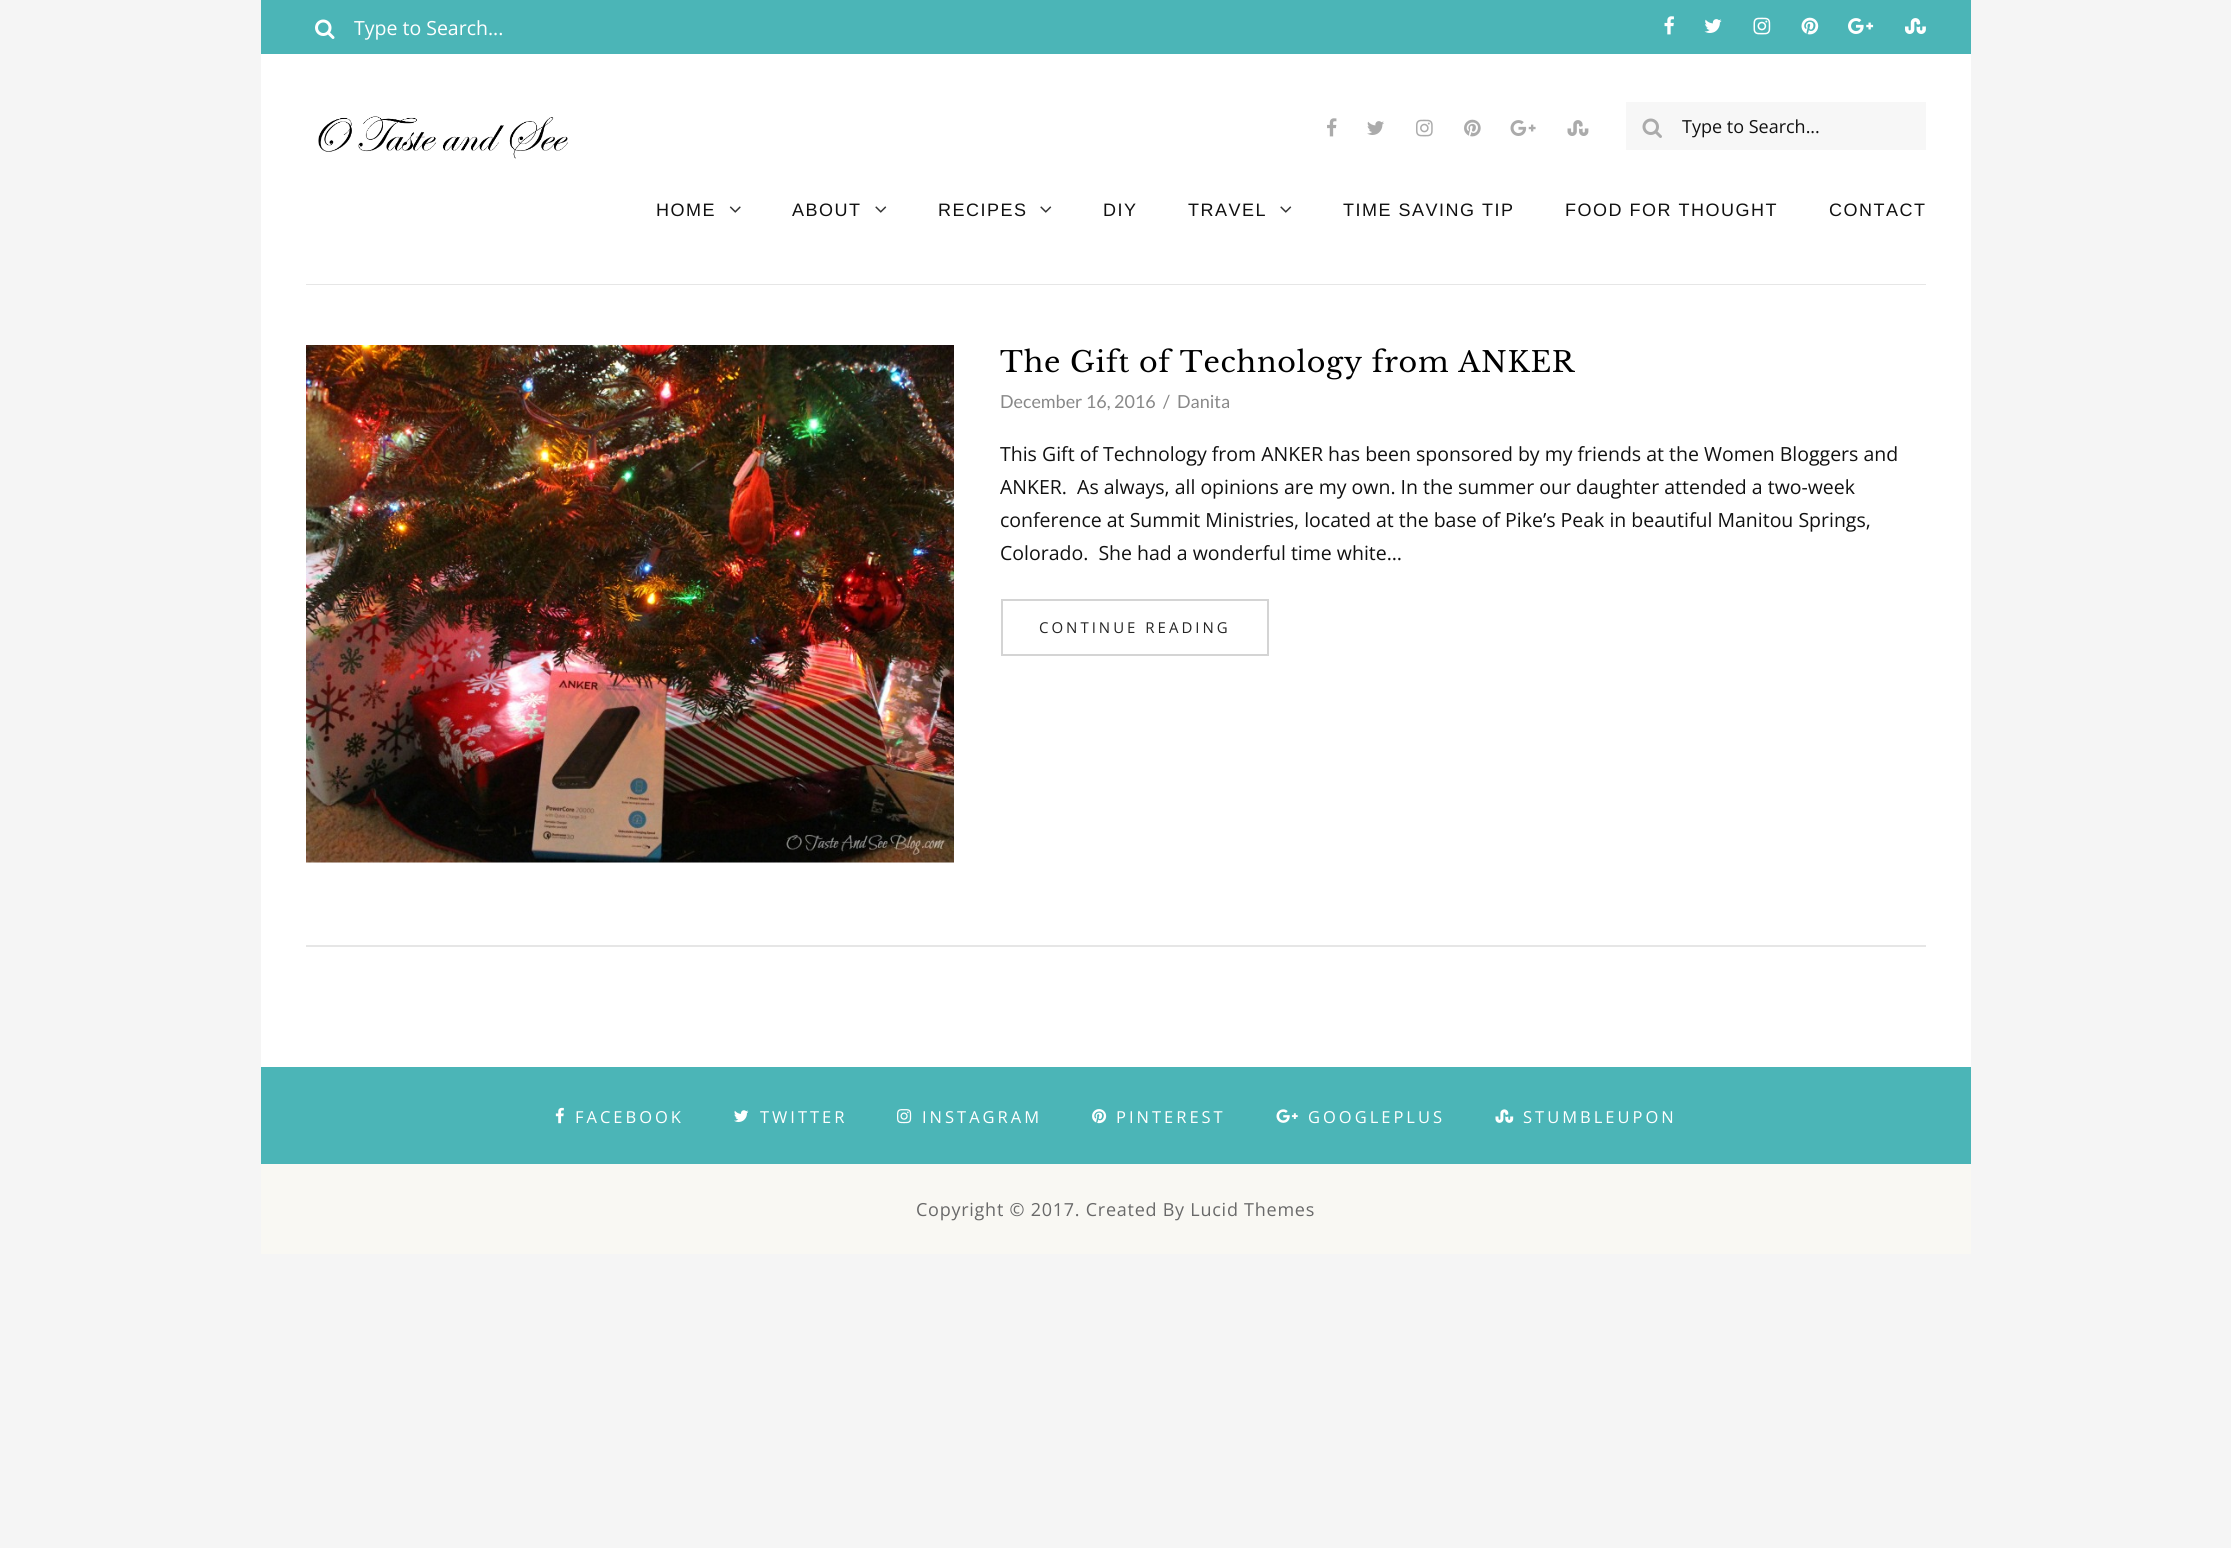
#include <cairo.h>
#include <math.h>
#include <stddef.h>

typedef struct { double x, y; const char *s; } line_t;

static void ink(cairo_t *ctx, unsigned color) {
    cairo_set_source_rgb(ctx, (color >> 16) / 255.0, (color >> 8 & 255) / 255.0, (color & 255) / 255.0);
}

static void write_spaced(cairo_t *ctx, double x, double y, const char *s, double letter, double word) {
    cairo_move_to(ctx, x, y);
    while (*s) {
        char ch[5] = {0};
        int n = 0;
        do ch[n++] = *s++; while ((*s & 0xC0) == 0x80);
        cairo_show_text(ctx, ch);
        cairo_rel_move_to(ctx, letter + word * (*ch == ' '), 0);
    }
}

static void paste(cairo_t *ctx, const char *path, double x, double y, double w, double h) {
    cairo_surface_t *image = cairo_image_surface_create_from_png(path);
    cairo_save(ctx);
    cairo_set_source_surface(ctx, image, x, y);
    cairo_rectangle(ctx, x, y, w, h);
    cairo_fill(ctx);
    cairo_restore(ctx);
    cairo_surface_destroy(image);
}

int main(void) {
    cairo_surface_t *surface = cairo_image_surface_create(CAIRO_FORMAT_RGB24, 2231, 1548);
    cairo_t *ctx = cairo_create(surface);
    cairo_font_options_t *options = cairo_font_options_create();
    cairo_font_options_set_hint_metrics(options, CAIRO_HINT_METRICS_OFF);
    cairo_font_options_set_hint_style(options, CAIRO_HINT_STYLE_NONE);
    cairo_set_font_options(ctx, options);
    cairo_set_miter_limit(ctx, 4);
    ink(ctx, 0xF5F5F5);
    cairo_paint(ctx);
    ink(ctx, 0xFFFFFF);
    cairo_rectangle(ctx, 261, 54, 1710, 1013);
    cairo_fill(ctx);
    ink(ctx, 0x4BB5B7);
    cairo_rectangle(ctx, 261, 0, 1710, 54);
    cairo_fill(ctx);
    paste(ctx, "media/1.png", 315, 19, 20, 20);
    cairo_select_font_face(ctx, "Open Sans", CAIRO_FONT_SLANT_NORMAL, CAIRO_FONT_WEIGHT_NORMAL);
    cairo_set_font_size(ctx, 19.5);
    ink(ctx, 0xFFFFFF);
    cairo_move_to(ctx, 354, 35);
    cairo_show_text(ctx, "Type to Search...");
    paste(ctx, "media/2.png", 1664, 16, 10, 19);
    paste(ctx, "media/3.png", 1704, 19, 18, 14);
    paste(ctx, "media/4.png", 1753, 17, 18, 18);
    paste(ctx, "media/5.png", 1801, 17, 18, 18);
    paste(ctx, "media/6.png", 1848, 18, 26, 16);
    paste(ctx, "media/7.png", 1905, 18, 21, 16);
    ink(ctx, 0xE6E6E6);
    cairo_rectangle(ctx, 306, 284, 1620, 1);
    cairo_fill(ctx);
    paste(ctx, "media/8.png", 318, 116, 250, 43);
    paste(ctx, "media/9.png", 1327, 118, 10, 19);
    paste(ctx, "media/10.png", 1367, 121, 17, 14);
    paste(ctx, "media/11.png", 1416, 119, 17, 18);
    paste(ctx, "media/12.png", 1464, 119, 17, 18);
    paste(ctx, "media/13.png", 1510, 120, 26, 16);
    paste(ctx, "media/14.png", 1567, 120, 22, 16);
    ink(ctx, 0xF7F7F7);
    cairo_rectangle(ctx, 1626, 102, 300, 48);
    cairo_fill(ctx);
    paste(ctx, "media/15.png", 1642, 118, 20, 20);
    cairo_set_font_size(ctx, 18);
    ink(ctx, 0x111111);
    cairo_move_to(ctx, 1682, 133);
    cairo_show_text(ctx, "Type to Search...");
    cairo_select_font_face(ctx, "Liberation Sans", CAIRO_FONT_SLANT_NORMAL, CAIRO_FONT_WEIGHT_NORMAL);
    write_spaced(ctx, 656, 216, "HOME", 1.5, 0);
    paste(ctx, "media/16.png", 729, 206, 12, 7);
    write_spaced(ctx, 792, 216, "ABOUT", 1.5, 0);
    paste(ctx, "media/17.png", 875, 206, 12, 7);
    write_spaced(ctx, 938, 216, "RECIPES", 1.5, 0);
    paste(ctx, "media/17.png", 1040, 206, 12, 7);
    write_spaced(ctx, 1103, 216, "DIY", 1.5, 0);
    write_spaced(ctx, 1188, 216, "TRAVEL", 1.5, 0);
    paste(ctx, "media/17.png", 1280, 206, 12, 7);
    {
        static const line_t items[] = {
            {1343, 216, "TIME SAVING TIP"},
            {1565, 216, "FOOD FOR THOUGHT"},
            {1829, 216, "CONTACT"},
        };
        for (size_t i = 0; i < sizeof items / sizeof *items; i++) {
            write_spaced(ctx, items[i].x, items[i].y, items[i].s, 1.5, 0);
        }
    }
    ink(ctx, 0xE6E6E6);
    cairo_rectangle(ctx, 306, 945, 1620, 2);
    cairo_fill(ctx);
    paste(ctx, "media/18.png", 306, 345, 648, 518);
    cairo_select_font_face(ctx, "Libre Baskerville", CAIRO_FONT_SLANT_NORMAL, CAIRO_FONT_WEIGHT_NORMAL);
    cairo_set_font_size(ctx, 28.5);
    ink(ctx, 0x000000);
    write_spaced(ctx, 1000, 372, "The Gift of Technology from ANKER", 0.75, 0);
    cairo_select_font_face(ctx, "Lato", CAIRO_FONT_SLANT_NORMAL, CAIRO_FONT_WEIGHT_NORMAL);
    cairo_set_font_size(ctx, 18);
    ink(ctx, 0x888888);
    {
        static const line_t items[] = {
            {1000, 408, "December 16, 2016"},
            {1163, 408, "/"},
            {1177, 408, "Danita"},
        };
        for (size_t i = 0; i < sizeof items / sizeof *items; i++) {
            cairo_move_to(ctx, items[i].x, items[i].y);
            cairo_show_text(ctx, items[i].s);
        }
    }
    cairo_select_font_face(ctx, "Open Sans", CAIRO_FONT_SLANT_NORMAL, CAIRO_FONT_WEIGHT_NORMAL);
    cairo_set_font_size(ctx, 19.5);
    ink(ctx, 0x111111);
    {
        static const line_t items[] = {
            {1000, 461, "This Gift of Technology from ANKER has been sponsored by my friends at the Women Bloggers and"},
            {1000, 494, "ANKER.  As always, all opinions are my own. In the summer our daughter attended a two-week"},
            {1000, 527, "conference at Summit Ministries, located at the base of Pike’s Peak in beautiful Manitou Springs,"},
            {1000, 560, "Colorado.  She had a wonderful time white…"},
        };
        for (size_t i = 0; i < sizeof items / sizeof *items; i++) {
            cairo_move_to(ctx, items[i].x, items[i].y);
            cairo_show_text(ctx, items[i].s);
        }
    }
    cairo_rectangle(ctx, 1002, 600, 266, 55);
    ink(ctx, 0xD4D4D4);
    cairo_stroke(ctx);
    cairo_set_font_size(ctx, 15);
    ink(ctx, 0x242424);
    write_spaced(ctx, 1039, 633, "CONTINUE READING", 3, 0);
    ink(ctx, 0x4BB5B7);
    cairo_rectangle(ctx, 261, 1067, 1710, 97);
    cairo_fill(ctx);
    paste(ctx, "media/19.png", 555, 1107, 9, 17);
    cairo_set_font_size(ctx, 16.5);
    ink(ctx, 0xFFFFFF);
    write_spaced(ctx, 575, 1123, "FACEBOOK", 3, 0);
    paste(ctx, "media/20.png", 734, 1110, 15, 12);
    write_spaced(ctx, 760, 1123, "TWITTER", 3, 0);
    paste(ctx, "media/21.png", 897, 1109, 15, 15);
    write_spaced(ctx, 922, 1123, "INSTAGRAM", 3, 0);
    paste(ctx, "media/22.png", 1092, 1109, 15, 15);
    write_spaced(ctx, 1116, 1123, "PINTEREST", 3, 0);
    paste(ctx, "media/23.png", 1276, 1109, 22, 14);
    write_spaced(ctx, 1308, 1123, "GOOGLEPLUS", 3, 0);
    paste(ctx, "media/24.png", 1495, 1109, 19, 14);
    write_spaced(ctx, 1523, 1123, "STUMBLEUPON", 3, 0);
    ink(ctx, 0xF9F8F3);
    cairo_rectangle(ctx, 261, 1164, 1710, 90);
    cairo_fill(ctx);
    cairo_set_font_size(ctx, 18);
    ink(ctx, 0x696969);
    write_spaced(ctx, 916, 1216, "Copyright © 2017. Created By Lucid Themes", 0.75, 0);
    cairo_surface_write_to_png(surface, "image.png");
    cairo_font_options_destroy(options);
    cairo_destroy(ctx);
    cairo_surface_destroy(surface);
    return 0;
}
